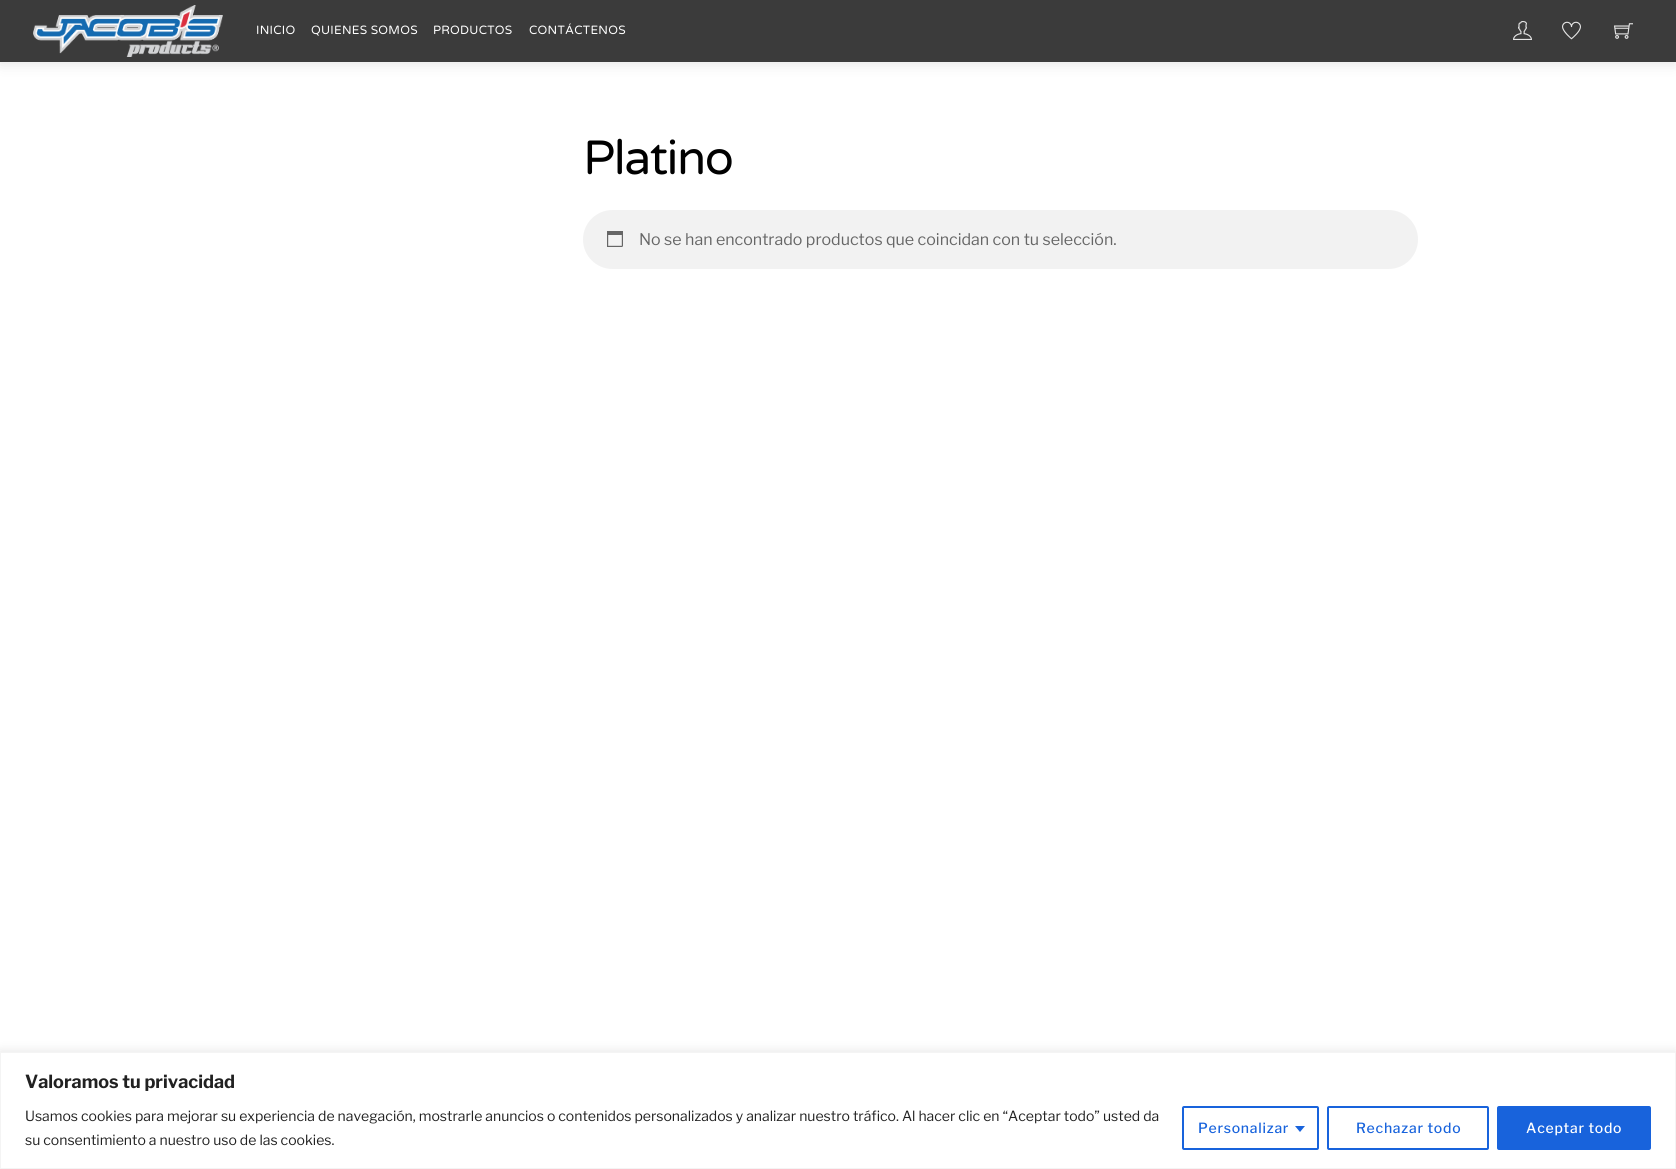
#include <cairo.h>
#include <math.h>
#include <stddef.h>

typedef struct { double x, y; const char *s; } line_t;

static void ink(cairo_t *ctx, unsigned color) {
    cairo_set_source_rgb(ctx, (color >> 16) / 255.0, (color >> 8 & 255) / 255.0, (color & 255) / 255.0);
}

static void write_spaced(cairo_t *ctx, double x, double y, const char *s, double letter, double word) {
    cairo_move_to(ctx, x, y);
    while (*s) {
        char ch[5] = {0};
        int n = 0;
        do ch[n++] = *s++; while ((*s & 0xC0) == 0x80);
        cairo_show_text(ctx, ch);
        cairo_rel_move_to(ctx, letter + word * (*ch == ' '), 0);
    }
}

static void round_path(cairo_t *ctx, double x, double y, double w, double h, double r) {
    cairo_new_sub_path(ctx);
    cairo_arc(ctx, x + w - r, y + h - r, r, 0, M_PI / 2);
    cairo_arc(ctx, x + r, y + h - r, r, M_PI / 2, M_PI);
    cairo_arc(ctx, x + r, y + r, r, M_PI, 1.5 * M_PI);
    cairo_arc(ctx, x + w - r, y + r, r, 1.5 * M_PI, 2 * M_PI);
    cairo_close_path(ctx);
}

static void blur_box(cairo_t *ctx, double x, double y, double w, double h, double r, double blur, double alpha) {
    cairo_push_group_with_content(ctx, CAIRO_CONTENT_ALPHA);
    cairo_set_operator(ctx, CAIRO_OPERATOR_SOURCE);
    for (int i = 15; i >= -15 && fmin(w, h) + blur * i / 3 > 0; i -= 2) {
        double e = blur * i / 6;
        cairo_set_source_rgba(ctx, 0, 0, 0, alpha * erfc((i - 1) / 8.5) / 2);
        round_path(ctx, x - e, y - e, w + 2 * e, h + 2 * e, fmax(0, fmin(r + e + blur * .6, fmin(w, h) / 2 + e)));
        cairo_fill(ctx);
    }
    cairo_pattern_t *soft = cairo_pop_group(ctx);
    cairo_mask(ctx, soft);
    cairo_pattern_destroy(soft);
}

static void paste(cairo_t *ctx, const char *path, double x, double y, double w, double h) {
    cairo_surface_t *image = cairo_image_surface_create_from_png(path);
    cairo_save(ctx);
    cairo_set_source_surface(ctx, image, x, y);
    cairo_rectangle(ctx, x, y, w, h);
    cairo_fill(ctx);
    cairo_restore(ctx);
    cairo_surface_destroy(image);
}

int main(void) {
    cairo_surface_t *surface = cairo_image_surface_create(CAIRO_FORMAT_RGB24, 1676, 1169);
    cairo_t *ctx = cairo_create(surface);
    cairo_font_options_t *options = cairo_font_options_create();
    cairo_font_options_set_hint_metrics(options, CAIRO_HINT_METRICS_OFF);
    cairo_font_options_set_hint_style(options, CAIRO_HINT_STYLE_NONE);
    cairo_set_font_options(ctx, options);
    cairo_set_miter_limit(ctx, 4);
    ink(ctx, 0xFFFFFF);
    cairo_paint(ctx);
    ink(ctx, 0x000000);
    blur_box(ctx, 0, 1, 1676, 62, 0, 7.5, 0.12);
    ink(ctx, 0x3B3B3B);
    cairo_rectangle(ctx, 0, 0, 1676, 62);
    cairo_fill(ctx);
    paste(ctx, "media/1.png", 33, 5, 190, 52);
    cairo_select_font_face(ctx, "Varela Round", CAIRO_FONT_SLANT_NORMAL, CAIRO_FONT_WEIGHT_NORMAL);
    cairo_set_font_size(ctx, 12);
    ink(ctx, 0xFFFFFF);
    {
        static const line_t items[] = {
            {256, 34, "INICIO"},
            {311, 34, "QUIENES SOMOS"},
            {433, 34, "PRODUCTOS"},
            {529, 34, "CONTÁCTENOS"},
        };
        for (size_t i = 0; i < sizeof items / sizeof *items; i++) {
            write_spaced(ctx, items[i].x, items[i].y, items[i].s, 0.25, 0);
        }
    }
    paste(ctx, "media/2.png", 1513, 21, 19, 19);
    paste(ctx, "media/3.png", 1562, 21, 19, 19);
    paste(ctx, "media/4.png", 1614, 23, 19, 16);
    cairo_set_font_size(ctx, 48);
    ink(ctx, 0x000000);
    write_spaced(ctx, 583, 174, "Platino", -1.5, 0);
    ink(ctx, 0xF2F2F2);
    round_path(ctx, 583, 210, 835, 59, 29.5);
    cairo_fill(ctx);
    paste(ctx, "media/5.png", 607, 231, 16, 16);
    cairo_select_font_face(ctx, "Libre Franklin", CAIRO_FONT_SLANT_NORMAL, CAIRO_FONT_WEIGHT_NORMAL);
    cairo_set_font_size(ctx, 16);
    ink(ctx, 0x666666);
    cairo_move_to(ctx, 639, 245);
    cairo_show_text(ctx, "No se han encontrado productos que coincidan con tu selección.");
    ink(ctx, 0xACABAB);
    blur_box(ctx, 0, 1051, 1676, 117, 0, 5, 0.3);
    ink(ctx, 0xFFFFFF);
    cairo_rectangle(ctx, 0.5, 1052.5, 1675, 116);
    cairo_fill_preserve(ctx);
    ink(ctx, 0xF4F4F4);
    cairo_set_line_width(ctx, 1);
    cairo_stroke(ctx);
    cairo_select_font_face(ctx, "Libre Franklin", CAIRO_FONT_SLANT_NORMAL, CAIRO_FONT_WEIGHT_BOLD);
    cairo_set_font_size(ctx, 18);
    ink(ctx, 0x212121);
    cairo_move_to(ctx, 25, 1088);
    cairo_show_text(ctx, "Valoramos tu privacidad");
    cairo_select_font_face(ctx, "Libre Franklin", CAIRO_FONT_SLANT_NORMAL, CAIRO_FONT_WEIGHT_NORMAL);
    cairo_set_font_size(ctx, 14);
    cairo_move_to(ctx, 25, 1121);
    cairo_show_text(ctx, "Usamos cookies para mejorar su experiencia de navegación, mostrarle anuncios o contenidos personalizados y analizar nuestro tráfico. Al hacer clic en “Aceptar todo” usted da");
    cairo_move_to(ctx, 25, 1145);
    cairo_show_text(ctx, "su consentimiento a nuestro uso de las cookies.");
    round_path(ctx, 1183, 1107, 135, 42, 1);
    ink(ctx, 0x1863DC);
    cairo_set_line_width(ctx, 2);
    cairo_stroke(ctx);
    cairo_select_font_face(ctx, "Libre Franklin Medium", CAIRO_FONT_SLANT_NORMAL, CAIRO_FONT_WEIGHT_NORMAL);
    write_spaced(ctx, 1198, 1133, "Personalizar", 0.75, 0);
    cairo_new_path(ctx);
    cairo_move_to(ctx, 1295, 1126);
    cairo_line_to(ctx, 1305, 1126);
    cairo_line_to(ctx, 1300, 1132);
    cairo_close_path(ctx);
    cairo_fill(ctx);
    round_path(ctx, 1328, 1107, 160, 42, 1);
    cairo_stroke(ctx);
    write_spaced(ctx, 1356, 1133, "Rechazar todo", 0.75, 0);
    round_path(ctx, 1498, 1107, 152, 42, 1);
    cairo_fill_preserve(ctx);
    cairo_stroke(ctx);
    ink(ctx, 0xFFFFFF);
    write_spaced(ctx, 1526, 1133, "Aceptar todo", 0.75, 0);
    cairo_surface_write_to_png(surface, "image.png");
    cairo_font_options_destroy(options);
    cairo_destroy(ctx);
    cairo_surface_destroy(surface);
    return 0;
}
